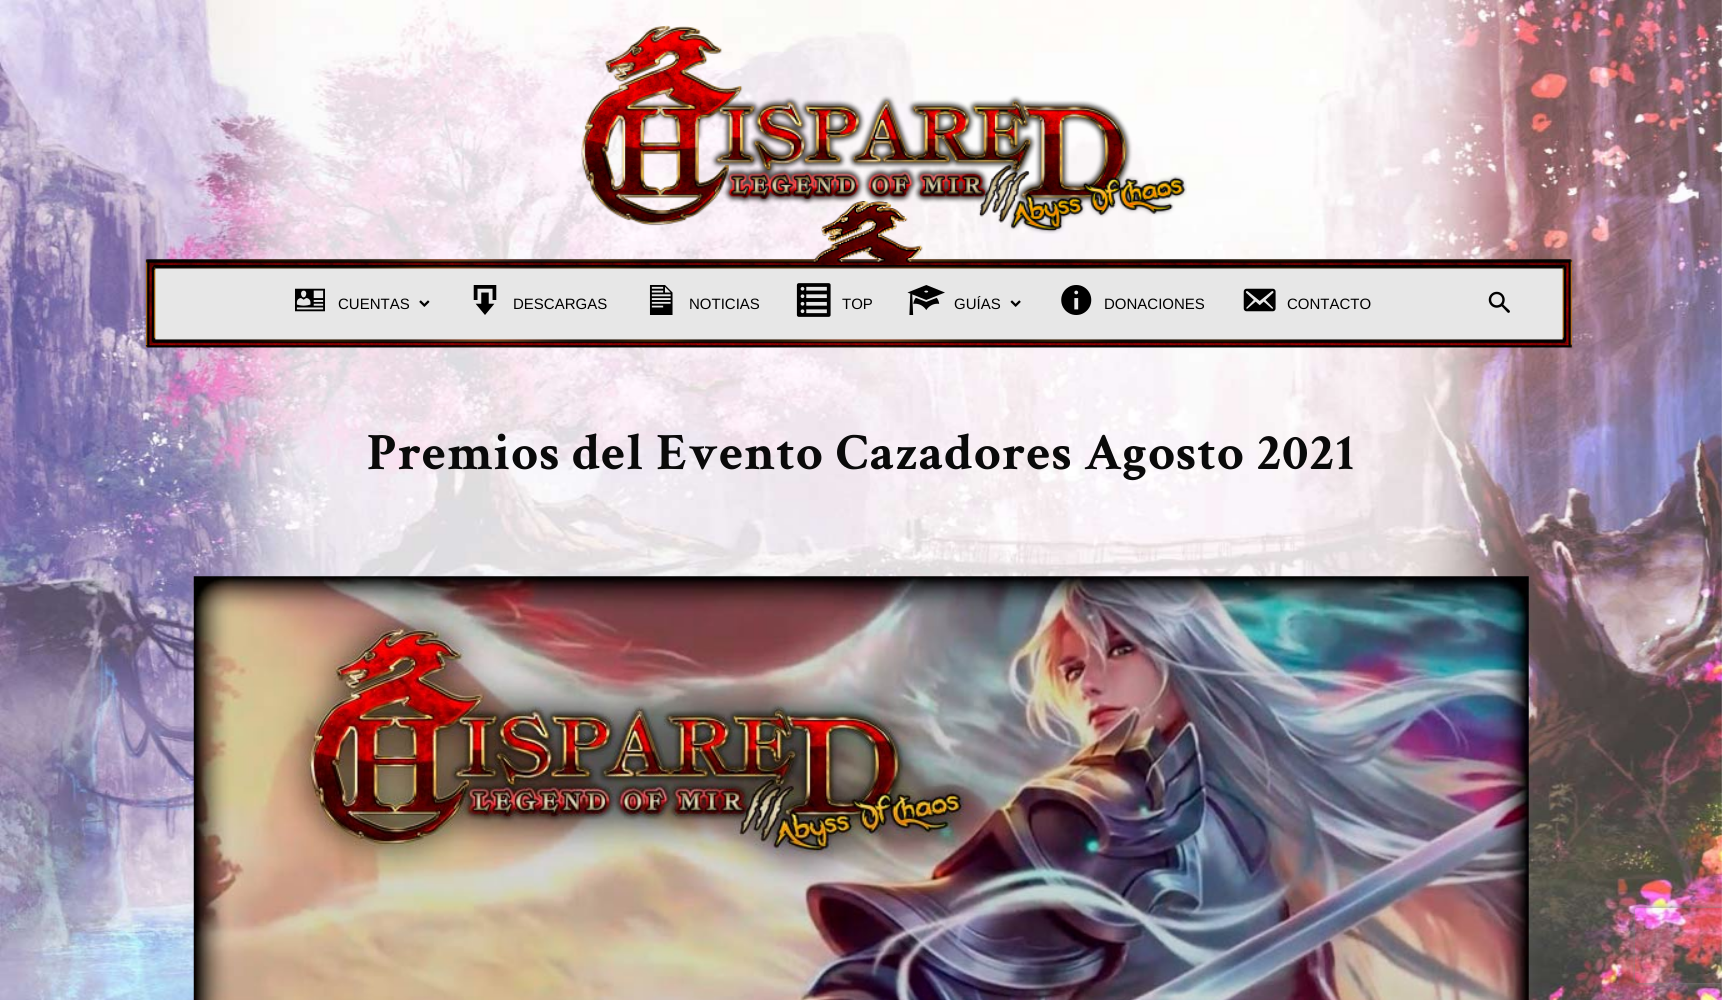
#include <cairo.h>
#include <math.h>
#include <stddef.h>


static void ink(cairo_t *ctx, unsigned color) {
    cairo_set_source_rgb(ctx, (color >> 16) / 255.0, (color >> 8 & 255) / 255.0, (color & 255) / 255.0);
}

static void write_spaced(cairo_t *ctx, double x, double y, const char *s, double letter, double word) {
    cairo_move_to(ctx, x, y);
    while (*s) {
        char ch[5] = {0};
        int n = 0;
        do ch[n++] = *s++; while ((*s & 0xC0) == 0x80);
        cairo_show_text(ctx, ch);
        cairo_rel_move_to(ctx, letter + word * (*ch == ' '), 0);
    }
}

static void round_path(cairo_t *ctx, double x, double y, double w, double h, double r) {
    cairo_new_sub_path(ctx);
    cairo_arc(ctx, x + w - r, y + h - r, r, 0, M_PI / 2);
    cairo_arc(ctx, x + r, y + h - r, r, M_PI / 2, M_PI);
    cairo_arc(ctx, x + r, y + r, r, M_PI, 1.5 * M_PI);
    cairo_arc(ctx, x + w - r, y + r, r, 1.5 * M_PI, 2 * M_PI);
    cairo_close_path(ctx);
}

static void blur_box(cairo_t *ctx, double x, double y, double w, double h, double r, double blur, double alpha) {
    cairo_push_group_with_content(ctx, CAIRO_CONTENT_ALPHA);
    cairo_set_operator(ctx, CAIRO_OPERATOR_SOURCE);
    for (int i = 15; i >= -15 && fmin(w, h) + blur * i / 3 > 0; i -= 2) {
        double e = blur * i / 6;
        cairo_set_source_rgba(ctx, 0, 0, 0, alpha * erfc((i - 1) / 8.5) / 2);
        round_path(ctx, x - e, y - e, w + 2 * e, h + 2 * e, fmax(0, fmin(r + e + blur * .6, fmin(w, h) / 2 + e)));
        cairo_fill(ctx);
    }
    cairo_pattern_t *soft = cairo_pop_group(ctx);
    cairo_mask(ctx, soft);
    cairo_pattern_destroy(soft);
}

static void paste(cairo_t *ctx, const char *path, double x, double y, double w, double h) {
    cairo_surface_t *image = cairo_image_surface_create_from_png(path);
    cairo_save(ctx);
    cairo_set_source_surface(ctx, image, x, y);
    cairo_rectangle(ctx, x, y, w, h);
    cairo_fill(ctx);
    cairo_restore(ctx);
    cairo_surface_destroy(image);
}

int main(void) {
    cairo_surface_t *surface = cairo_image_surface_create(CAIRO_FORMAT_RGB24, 1722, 1000);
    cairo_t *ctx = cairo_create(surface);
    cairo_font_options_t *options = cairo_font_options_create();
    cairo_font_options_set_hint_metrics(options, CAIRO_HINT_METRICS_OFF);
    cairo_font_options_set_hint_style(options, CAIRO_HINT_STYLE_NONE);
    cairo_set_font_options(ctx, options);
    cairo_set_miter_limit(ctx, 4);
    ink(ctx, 0xFFFFFF);
    cairo_paint(ctx);
    paste(ctx, "media/1.png", 0, 0, 1722, 1000);
    paste(ctx, "media/3.png", 145, 201, 1428, 147);
    paste(ctx, "media/2.png", 581, 25, 606, 209);
    paste(ctx, "media/4.png", 295, 288, 30, 24);
    cairo_select_font_face(ctx, "Liberation Sans", CAIRO_FONT_SLANT_NORMAL, CAIRO_FONT_WEIGHT_NORMAL);
    cairo_set_font_size(ctx, 15);
    ink(ctx, 0x000000);
    cairo_move_to(ctx, 338, 309);
    cairo_show_text(ctx, "CUENTAS");
    paste(ctx, "media/5.png", 419, 300, 11, 7);
    paste(ctx, "media/6.png", 473, 285, 24, 30);
    cairo_move_to(ctx, 513, 309);
    cairo_show_text(ctx, "DESCARGAS");
    paste(ctx, "media/7.png", 649, 285, 24, 30);
    cairo_move_to(ctx, 689, 309);
    cairo_show_text(ctx, "NOTICIAS");
    paste(ctx, "media/8.png", 796, 283, 35, 34);
    cairo_move_to(ctx, 842, 309);
    cairo_show_text(ctx, "TOP");
    paste(ctx, "media/9.png", 907, 285, 38, 30);
    cairo_move_to(ctx, 954, 309);
    cairo_show_text(ctx, "GUÍAS");
    paste(ctx, "media/10.png", 1010, 300, 11, 7);
    paste(ctx, "media/11.png", 1061, 285, 31, 30);
    cairo_move_to(ctx, 1104, 309);
    cairo_show_text(ctx, "DONACIONES");
    paste(ctx, "media/12.png", 1243, 288, 33, 24);
    cairo_move_to(ctx, 1287, 309);
    cairo_show_text(ctx, "CONTACTO");
    paste(ctx, "media/13.png", 1488, 291, 22, 22);
    cairo_select_font_face(ctx, "Crimson Text", CAIRO_FONT_SLANT_NORMAL, CAIRO_FONT_WEIGHT_BOLD);
    cairo_set_font_size(ctx, 52.5);
    ink(ctx, 0x0A0A0A);
    write_spaced(ctx, 367, 469, "Premios del Evento Cazadores Agosto 2021", 1.05, 0);
    paste(ctx, "media/14.png", 193, 576, 1336, 424);
    cairo_save(ctx);
    cairo_set_fill_rule(ctx, CAIRO_FILL_RULE_EVEN_ODD);
    cairo_new_path(ctx);
    cairo_move_to(ctx, 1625, 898);
    cairo_line_to(ctx, 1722, 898);
    cairo_line_to(ctx, 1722, 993);
    cairo_line_to(ctx, 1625, 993);
    cairo_close_path(ctx);
    cairo_move_to(ctx, 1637.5, 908);
    cairo_line_to(ctx, 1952.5, 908);
    cairo_curve_to(ctx, 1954, 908, 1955, 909, 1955, 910.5);
    cairo_line_to(ctx, 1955, 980.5);
    cairo_curve_to(ctx, 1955, 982, 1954, 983, 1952.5, 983);
    cairo_line_to(ctx, 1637.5, 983);
    cairo_curve_to(ctx, 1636, 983, 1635, 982, 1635, 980.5);
    cairo_line_to(ctx, 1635, 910.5);
    cairo_curve_to(ctx, 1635, 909, 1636, 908, 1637.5, 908);
    cairo_close_path(ctx);
    cairo_clip(ctx);
    ink(ctx, 0x808080);
    blur_box(ctx, 1635, 908, 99, 75, 2.5, 3, 1);
    cairo_restore(ctx);
    cairo_surface_write_to_png(surface, "image.png");
    cairo_font_options_destroy(options);
    cairo_destroy(ctx);
    cairo_surface_destroy(surface);
    return 0;
}
